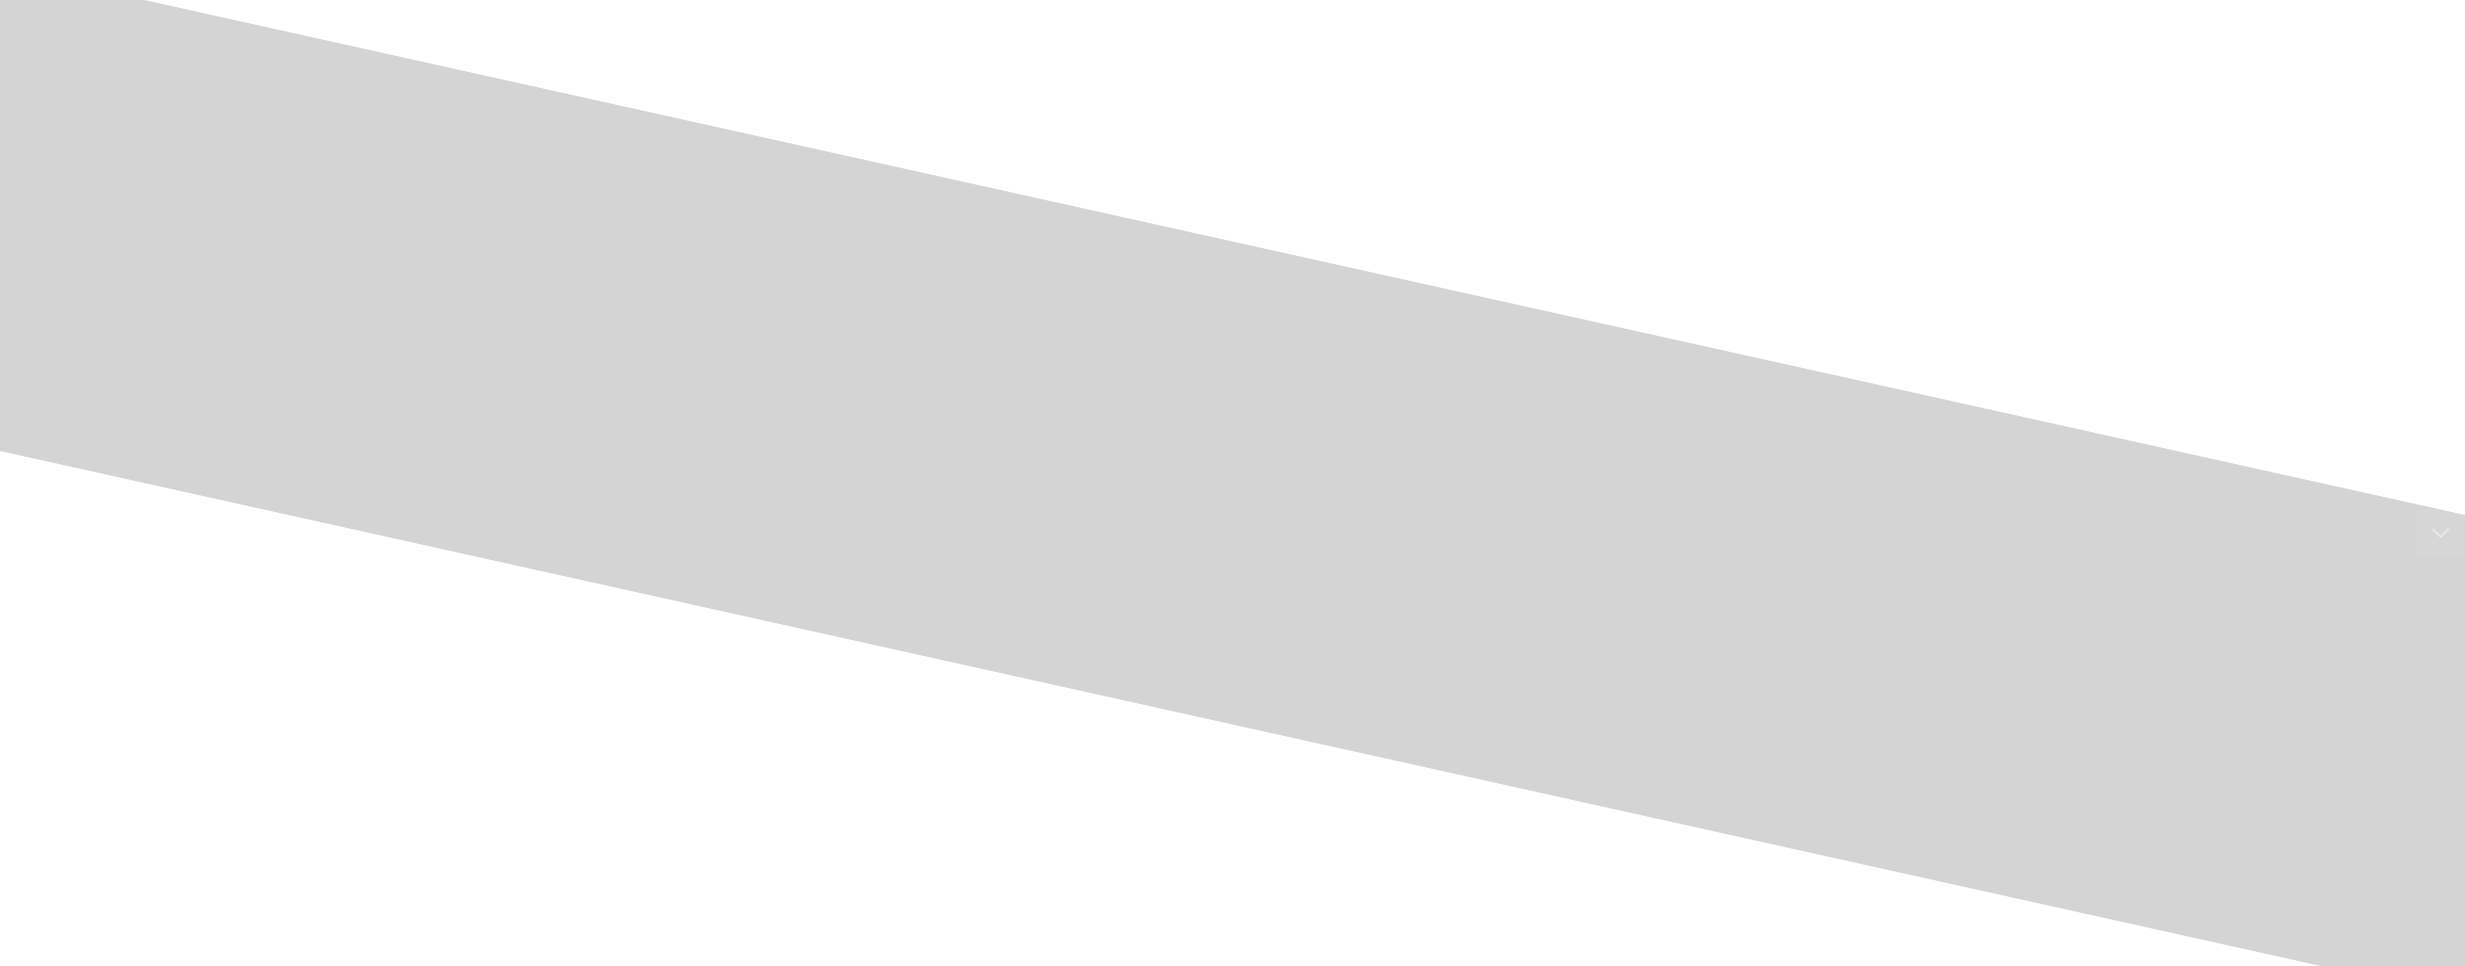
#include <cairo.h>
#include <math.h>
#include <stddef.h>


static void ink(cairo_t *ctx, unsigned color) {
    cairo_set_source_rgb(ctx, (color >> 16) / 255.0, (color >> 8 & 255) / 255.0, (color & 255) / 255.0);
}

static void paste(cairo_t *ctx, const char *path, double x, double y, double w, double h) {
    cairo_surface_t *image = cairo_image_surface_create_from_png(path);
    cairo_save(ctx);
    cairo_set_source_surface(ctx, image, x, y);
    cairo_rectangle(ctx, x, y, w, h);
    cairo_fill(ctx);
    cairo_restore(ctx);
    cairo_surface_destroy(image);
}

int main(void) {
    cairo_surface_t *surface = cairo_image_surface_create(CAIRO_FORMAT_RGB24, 2465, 966);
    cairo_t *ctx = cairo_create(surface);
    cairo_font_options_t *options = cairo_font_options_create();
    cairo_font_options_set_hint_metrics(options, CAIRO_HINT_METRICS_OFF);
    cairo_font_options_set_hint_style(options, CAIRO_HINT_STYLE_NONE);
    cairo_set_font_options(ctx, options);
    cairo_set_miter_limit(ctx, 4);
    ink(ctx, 0xD4D4D4);
    cairo_paint(ctx);
    paste(ctx, "media/1.png", 2416, 504, 13, 3);
    paste(ctx, "media/2.png", 2416, 509, 49, 48);
    ink(ctx, 0xFFFFFF);
    cairo_new_path(ctx);
    cairo_move_to(ctx, 0, -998);
    cairo_line_to(ctx, 2465, -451);
    cairo_line_to(ctx, 2465, 515);
    cairo_line_to(ctx, 0, -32);
    cairo_close_path(ctx);
    cairo_fill(ctx);
    cairo_new_path(ctx);
    cairo_move_to(ctx, 0, 451);
    cairo_line_to(ctx, 2465, 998);
    cairo_line_to(ctx, 2465, 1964);
    cairo_line_to(ctx, 0, 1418);
    cairo_close_path(ctx);
    cairo_fill(ctx);
    cairo_surface_write_to_png(surface, "image.png");
    cairo_font_options_destroy(options);
    cairo_destroy(ctx);
    cairo_surface_destroy(surface);
    return 0;
}
